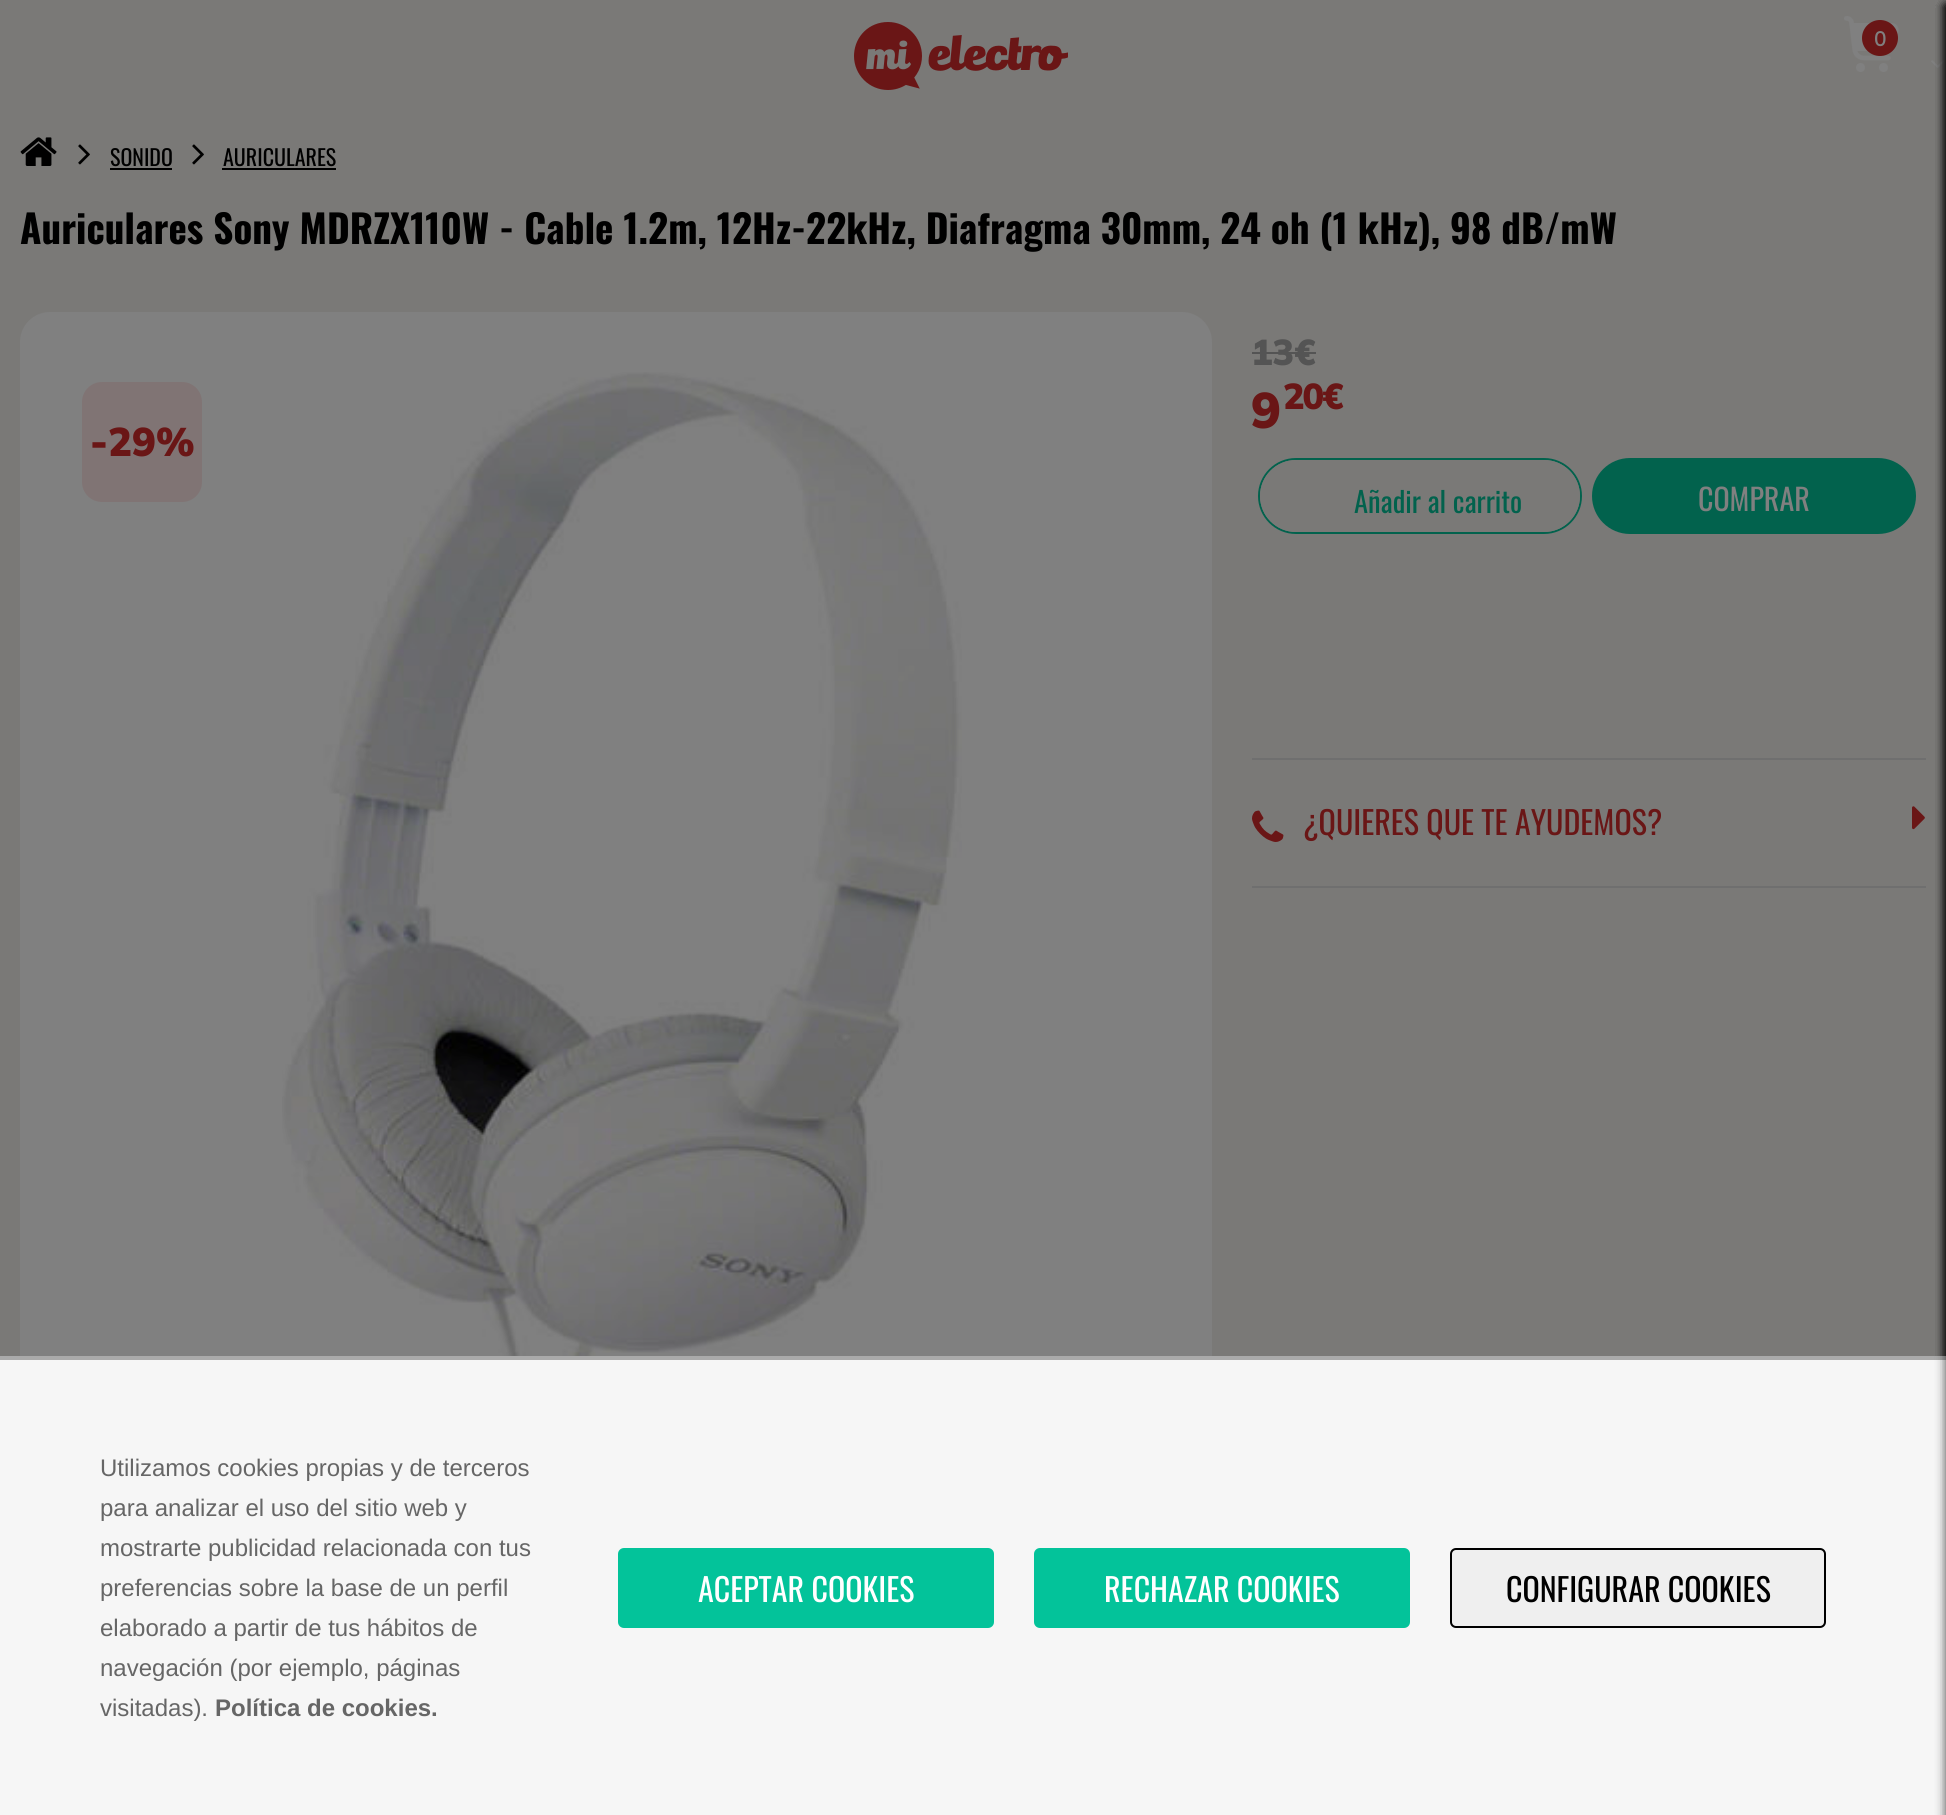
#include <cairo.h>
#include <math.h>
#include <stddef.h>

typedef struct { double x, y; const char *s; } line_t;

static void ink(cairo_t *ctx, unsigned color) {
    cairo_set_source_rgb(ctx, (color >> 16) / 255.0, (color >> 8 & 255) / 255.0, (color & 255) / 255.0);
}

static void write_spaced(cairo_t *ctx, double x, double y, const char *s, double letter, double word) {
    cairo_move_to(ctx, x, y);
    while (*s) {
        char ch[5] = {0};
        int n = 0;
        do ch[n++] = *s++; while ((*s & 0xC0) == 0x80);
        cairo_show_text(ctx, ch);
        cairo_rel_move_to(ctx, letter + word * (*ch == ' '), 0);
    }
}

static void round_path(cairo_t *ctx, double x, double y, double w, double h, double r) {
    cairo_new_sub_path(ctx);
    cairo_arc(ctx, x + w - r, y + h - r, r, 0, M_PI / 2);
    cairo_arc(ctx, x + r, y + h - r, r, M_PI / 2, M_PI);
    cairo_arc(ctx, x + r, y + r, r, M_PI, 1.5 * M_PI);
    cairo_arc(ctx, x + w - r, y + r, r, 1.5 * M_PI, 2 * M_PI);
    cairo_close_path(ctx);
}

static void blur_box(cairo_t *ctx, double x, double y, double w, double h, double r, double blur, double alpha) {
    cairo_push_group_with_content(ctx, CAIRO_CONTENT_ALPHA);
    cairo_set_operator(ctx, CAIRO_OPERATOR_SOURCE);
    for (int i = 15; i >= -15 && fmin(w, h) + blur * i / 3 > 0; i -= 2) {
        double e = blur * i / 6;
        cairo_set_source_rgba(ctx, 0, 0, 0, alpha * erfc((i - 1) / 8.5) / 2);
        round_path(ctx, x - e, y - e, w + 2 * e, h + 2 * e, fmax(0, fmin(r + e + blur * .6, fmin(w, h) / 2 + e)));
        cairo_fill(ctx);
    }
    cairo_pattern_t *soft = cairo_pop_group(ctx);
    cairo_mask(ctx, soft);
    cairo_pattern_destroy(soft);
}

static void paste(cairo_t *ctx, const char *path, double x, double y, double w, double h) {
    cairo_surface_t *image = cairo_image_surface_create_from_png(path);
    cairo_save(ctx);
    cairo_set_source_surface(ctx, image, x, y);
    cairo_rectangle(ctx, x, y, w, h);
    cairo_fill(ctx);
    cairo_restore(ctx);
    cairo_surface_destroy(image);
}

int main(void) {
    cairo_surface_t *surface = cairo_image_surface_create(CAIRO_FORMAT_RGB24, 1946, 1815);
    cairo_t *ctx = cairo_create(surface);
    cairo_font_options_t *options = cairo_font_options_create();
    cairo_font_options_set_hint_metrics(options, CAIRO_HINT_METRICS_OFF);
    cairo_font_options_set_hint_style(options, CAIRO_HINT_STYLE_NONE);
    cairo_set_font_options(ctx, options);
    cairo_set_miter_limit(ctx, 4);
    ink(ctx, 0x7A7977);
    cairo_paint(ctx);
    paste(ctx, "media/3.png", 1931, 60, 13, 8);
    ink(ctx, 0x000000);
    blur_box(ctx, 1946, 6, 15, 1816, 0, 5, 0.41);
    blur_box(ctx, 1946, 6, 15, 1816, 0, 5, 0.41);
    blur_box(ctx, 1946, 6, 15, 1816, 0, 5, 0.41);
    blur_box(ctx, 1946, 6, 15, 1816, 0, 5, 0.41);
    ink(ctx, 0x808080);
    round_path(ctx, 20, 312, 1192, 1444, 30);
    cairo_fill(ctx);
    ink(ctx, 0xF6F6F6);
    cairo_rectangle(ctx, 0, 1360, 1946, 455);
    cairo_fill(ctx);
    ink(ctx, 0xAAAAAA);
    cairo_rectangle(ctx, 0, 1356, 1946, 4);
    cairo_fill(ctx);
    ink(ctx, 0x000000);
    blur_box(ctx, 1946, 6, 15, 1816, 0, 5, 0.41);
    paste(ctx, "media/1.png", 854, 22, 214, 68);
    paste(ctx, "media/2.png", 1844, 16, 55, 56);
    ink(ctx, 0x6A1616);
    cairo_arc(ctx, 1880, 38, 18, 0, 2 * M_PI);
    cairo_fill(ctx);
    cairo_select_font_face(ctx, "Muli", CAIRO_FONT_SLANT_NORMAL, CAIRO_FONT_WEIGHT_BOLD);
    cairo_set_font_size(ctx, 20);
    ink(ctx, 0x808080);
    cairo_move_to(ctx, 1874, 46);
    cairo_show_text(ctx, "0");
    paste(ctx, "media/4.png", 20, 137, 37, 29);
    paste(ctx, "media/5.png", 78, 144, 12, 21);
    cairo_select_font_face(ctx, "Oswald", CAIRO_FONT_SLANT_NORMAL, CAIRO_FONT_WEIGHT_NORMAL);
    cairo_set_font_size(ctx, 22);
    ink(ctx, 0x000000);
    cairo_move_to(ctx, 110, 166);
    cairo_show_text(ctx, "SONIDO");
    cairo_rectangle(ctx, 110, 168, 62, 2);
    cairo_fill(ctx);
    paste(ctx, "media/5.png", 192, 144, 12, 21);
    cairo_move_to(ctx, 223, 166);
    cairo_show_text(ctx, "AURICULARES");
    cairo_rectangle(ctx, 222, 168, 114, 2);
    cairo_fill(ctx);
    cairo_select_font_face(ctx, "Oswald", CAIRO_FONT_SLANT_NORMAL, CAIRO_FONT_WEIGHT_BOLD);
    cairo_set_font_size(ctx, 39);
    cairo_move_to(ctx, 20, 244);
    cairo_show_text(ctx, "Auriculares Sony MDRZX110W - Cable 1.2m, 12Hz-22kHz, Diafragma 30mm, 24 oh (1 kHz), 98 dB/mW");
    ink(ctx, 0x807474);
    round_path(ctx, 82, 382, 120, 120, 20);
    cairo_fill(ctx);
    cairo_select_font_face(ctx, "Mulish Black", CAIRO_FONT_SLANT_NORMAL, CAIRO_FONT_WEIGHT_NORMAL);
    cairo_set_font_size(ctx, 40);
    ink(ctx, 0x6A1616);
    cairo_move_to(ctx, 90, 456);
    cairo_show_text(ctx, "-29%");
    paste(ctx, "media/6.png", 282, 372, 680, 984);
    cairo_set_font_size(ctx, 36);
    ink(ctx, 0x545454);
    cairo_move_to(ctx, 1251, 365);
    cairo_show_text(ctx, "13€");
    cairo_rectangle(ctx, 1252, 352, 64, 2);
    cairo_fill(ctx);
    cairo_set_font_size(ctx, 50);
    ink(ctx, 0x6A1616);
    write_spaced(ctx, 1251, 428, "9", -2, 0);
    cairo_set_font_size(ctx, 36);
    write_spaced(ctx, 1283, 409, "20€", -2, 0);
    round_path(ctx, 1259, 459, 322, 74, 37);
    ink(ctx, 0x02624D);
    cairo_stroke(ctx);
    ink(ctx, 0x7A7977);
    round_path(ctx, 1260, 460, 320, 72, 36);
    cairo_fill(ctx);
    cairo_select_font_face(ctx, "Oswald", CAIRO_FONT_SLANT_NORMAL, CAIRO_FONT_WEIGHT_NORMAL);
    cairo_set_font_size(ctx, 28.5);
    ink(ctx, 0x02624D);
    cairo_move_to(ctx, 1354, 513);
    cairo_show_text(ctx, "Añadir al carrito");
    cairo_save(ctx);
    round_path(ctx, 1592, 458, 324, 76, 38);
    cairo_clip(ctx);
    round_path(ctx, 1592, 458, 324, 82, 10);
    cairo_fill(ctx);
    cairo_restore(ctx);
    cairo_set_font_size(ctx, 30);
    ink(ctx, 0x808080);
    cairo_move_to(ctx, 1698, 511);
    cairo_show_text(ctx, "COMPRAR");
    ink(ctx, 0x6F6F6F);
    cairo_rectangle(ctx, 1252, 758, 674, 2);
    cairo_fill(ctx);
    cairo_rectangle(ctx, 1252, 886, 674, 2);
    cairo_fill(ctx);
    paste(ctx, "media/7.png", 1252, 810, 32, 32);
    cairo_set_font_size(ctx, 32);
    ink(ctx, 0x6A1616);
    cairo_move_to(ctx, 1303, 835);
    cairo_show_text(ctx, "¿QUIERES QUE TE AYUDEMOS?");
    paste(ctx, "media/8.png", 1912, 806, 13, 24);
    ink(ctx, 0x000000);
    blur_box(ctx, 1946, 6, 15, 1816, 0, 5, 0.41);
    cairo_select_font_face(ctx, "Liberation Sans", CAIRO_FONT_SLANT_NORMAL, CAIRO_FONT_WEIGHT_NORMAL);
    cairo_set_font_size(ctx, 24);
    ink(ctx, 0x666666);
    {
        static const line_t items[] = {
            {100, 1476, "Utilizamos cookies propias y de terceros"},
            {100, 1516, "para analizar el uso del sitio web y"},
            {100, 1556, "mostrarte publicidad relacionada con tus"},
            {100, 1596, "preferencias sobre la base de un perfil"},
            {100, 1636, "elaborado a partir de tus hábitos de"},
            {100, 1676, "navegación (por ejemplo, páginas"},
            {100, 1716, "visitadas)."},
        };
        for (size_t i = 0; i < sizeof items / sizeof *items; i++) {
            cairo_move_to(ctx, items[i].x, items[i].y);
            cairo_show_text(ctx, items[i].s);
        }
    }
    cairo_select_font_face(ctx, "Liberation Sans", CAIRO_FONT_SLANT_NORMAL, CAIRO_FONT_WEIGHT_BOLD);
    cairo_move_to(ctx, 215, 1716);
    cairo_show_text(ctx, "Política de cookies.");
    ink(ctx, 0x03C39A);
    round_path(ctx, 618, 1548, 376, 80, 6);
    cairo_fill(ctx);
    cairo_select_font_face(ctx, "Oswald", CAIRO_FONT_SLANT_NORMAL, CAIRO_FONT_WEIGHT_NORMAL);
    cairo_set_font_size(ctx, 32);
    ink(ctx, 0xFFFFFF);
    cairo_move_to(ctx, 698, 1602);
    cairo_show_text(ctx, "ACEPTAR COOKIES");
    ink(ctx, 0x03C39A);
    round_path(ctx, 1034, 1548, 376, 80, 6);
    cairo_fill(ctx);
    ink(ctx, 0xFFFFFF);
    cairo_move_to(ctx, 1104, 1602);
    cairo_show_text(ctx, "RECHAZAR COOKIES");
    ink(ctx, 0xEFEFEF);
    round_path(ctx, 1451, 1549, 374, 78, 5);
    cairo_fill_preserve(ctx);
    ink(ctx, 0x000000);
    cairo_stroke(ctx);
    cairo_move_to(ctx, 1506, 1602);
    cairo_show_text(ctx, "CONFIGURAR COOKIES");
    cairo_surface_write_to_png(surface, "image.png");
    cairo_font_options_destroy(options);
    cairo_destroy(ctx);
    cairo_surface_destroy(surface);
    return 0;
}
